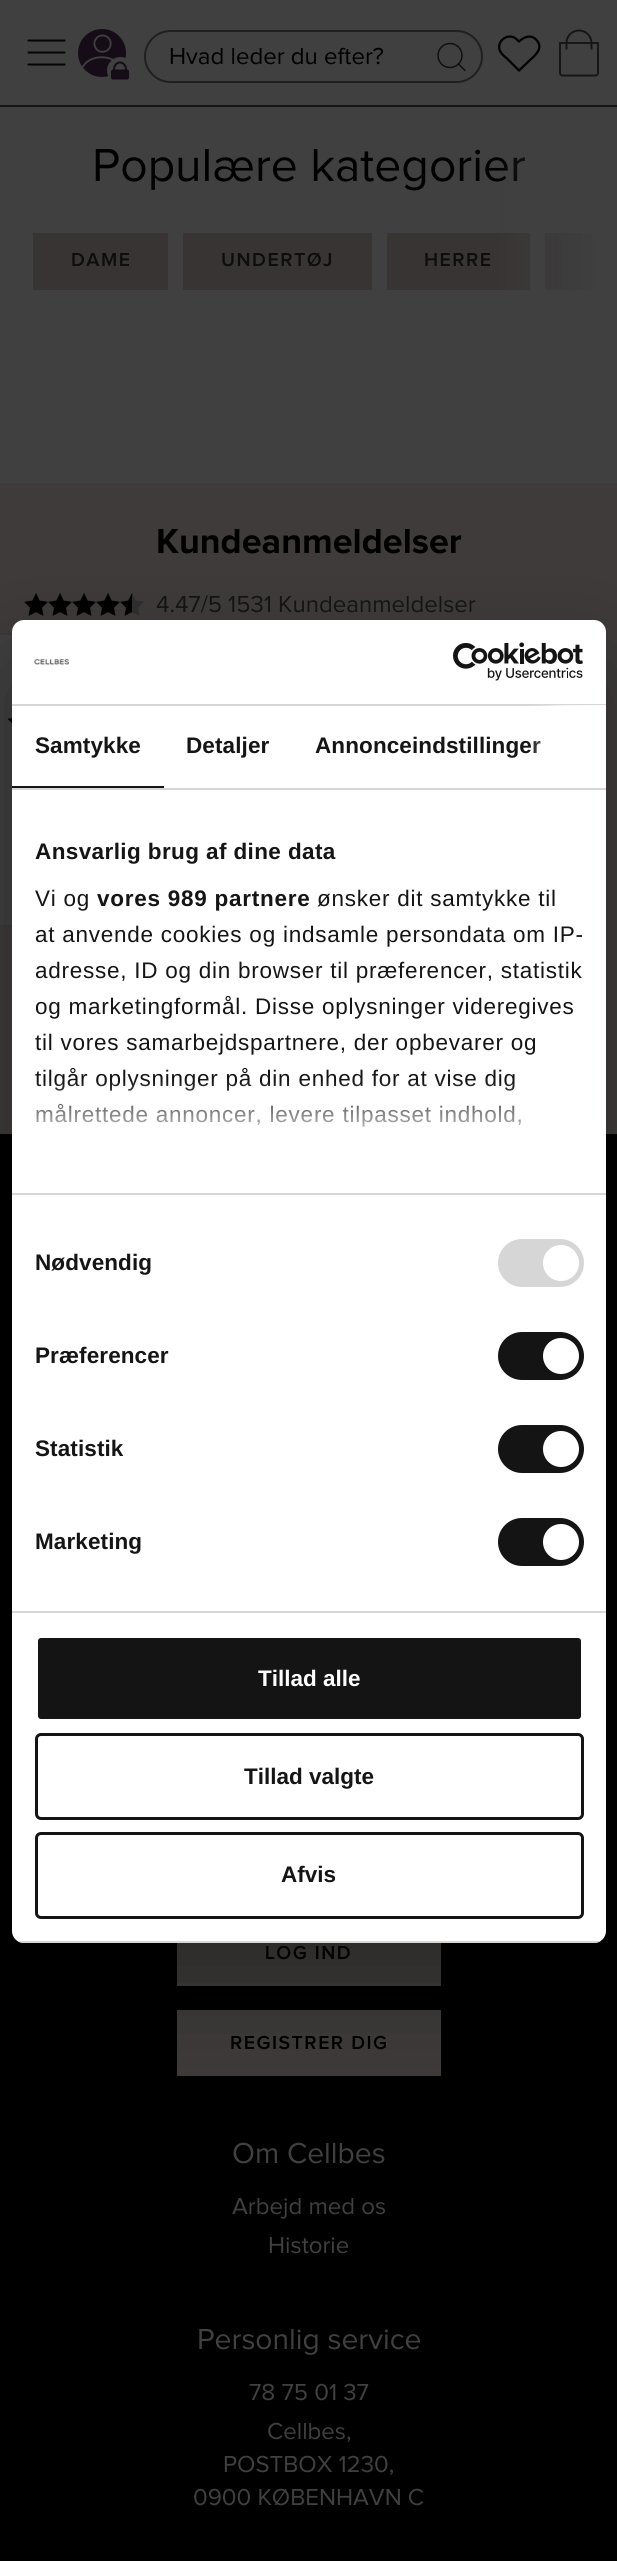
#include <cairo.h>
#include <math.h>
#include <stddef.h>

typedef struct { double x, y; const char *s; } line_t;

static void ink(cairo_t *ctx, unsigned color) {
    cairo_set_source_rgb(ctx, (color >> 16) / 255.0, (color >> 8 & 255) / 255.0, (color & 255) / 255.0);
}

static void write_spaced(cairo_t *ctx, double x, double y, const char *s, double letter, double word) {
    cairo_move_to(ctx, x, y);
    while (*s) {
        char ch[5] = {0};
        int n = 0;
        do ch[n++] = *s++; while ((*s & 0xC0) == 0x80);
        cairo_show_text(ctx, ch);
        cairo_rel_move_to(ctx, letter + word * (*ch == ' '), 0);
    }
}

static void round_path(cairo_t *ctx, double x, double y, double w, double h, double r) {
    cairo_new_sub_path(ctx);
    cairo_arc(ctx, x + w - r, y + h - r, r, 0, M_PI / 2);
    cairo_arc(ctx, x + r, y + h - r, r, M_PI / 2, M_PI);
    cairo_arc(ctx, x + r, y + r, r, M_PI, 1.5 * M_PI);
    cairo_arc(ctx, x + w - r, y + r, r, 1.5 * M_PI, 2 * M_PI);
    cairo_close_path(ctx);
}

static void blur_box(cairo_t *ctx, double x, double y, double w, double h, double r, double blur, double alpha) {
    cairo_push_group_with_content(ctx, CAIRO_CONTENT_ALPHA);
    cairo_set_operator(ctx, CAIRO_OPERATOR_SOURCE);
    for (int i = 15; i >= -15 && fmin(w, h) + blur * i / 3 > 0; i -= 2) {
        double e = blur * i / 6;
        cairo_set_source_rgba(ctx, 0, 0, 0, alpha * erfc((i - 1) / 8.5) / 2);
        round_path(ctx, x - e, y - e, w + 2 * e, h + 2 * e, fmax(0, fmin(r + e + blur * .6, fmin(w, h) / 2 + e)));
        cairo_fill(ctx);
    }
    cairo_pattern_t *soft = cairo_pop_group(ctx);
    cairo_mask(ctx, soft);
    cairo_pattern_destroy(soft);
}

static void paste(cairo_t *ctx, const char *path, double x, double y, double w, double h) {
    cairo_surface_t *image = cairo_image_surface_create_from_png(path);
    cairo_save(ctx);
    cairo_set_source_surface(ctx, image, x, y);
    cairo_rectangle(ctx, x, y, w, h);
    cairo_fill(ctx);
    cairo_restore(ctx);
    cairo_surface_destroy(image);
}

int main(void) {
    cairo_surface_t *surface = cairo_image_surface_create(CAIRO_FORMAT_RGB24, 617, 2561);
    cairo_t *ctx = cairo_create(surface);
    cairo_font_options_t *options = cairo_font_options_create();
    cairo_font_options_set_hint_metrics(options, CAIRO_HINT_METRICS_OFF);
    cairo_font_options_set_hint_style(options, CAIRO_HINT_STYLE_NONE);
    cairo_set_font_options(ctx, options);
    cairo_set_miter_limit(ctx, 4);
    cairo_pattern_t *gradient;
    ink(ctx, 0x404040);
    cairo_paint(ctx);
    ink(ctx, 0x151515);
    cairo_rectangle(ctx, 0, 105, 617, 2);
    cairo_fill(ctx);
    cairo_new_path(ctx);
    cairo_move_to(ctx, 28.5, 52.5);
    cairo_line_to(ctx, 64.5, 52.5);
    cairo_move_to(ctx, 28.5, 40.5);
    cairo_line_to(ctx, 64.5, 40.5);
    cairo_move_to(ctx, 28.5, 64.5);
    cairo_line_to(ctx, 64.5, 64.5);
    ink(ctx, 0x040404);
    cairo_set_line_cap(ctx, CAIRO_LINE_CAP_ROUND);
    cairo_set_line_join(ctx, CAIRO_LINE_JOIN_ROUND);
    cairo_stroke(ctx);
    ink(ctx, 0x160C18);
    cairo_arc(ctx, 102, 53, 24, 0, 2 * M_PI);
    cairo_fill(ctx);
    paste(ctx, "media/1.png", 82, 34, 32, 35);
    ink(ctx, 0x404040);
    cairo_arc(ctx, 120.5, 70.5, 13.5, 0, 2 * M_PI);
    cairo_fill(ctx);
    paste(ctx, "media/2.png", 110, 61, 20, 19);
    round_path(ctx, 145, 31, 337, 51, 25.5);
    ink(ctx, 0x202020);
    cairo_set_line_cap(ctx, CAIRO_LINE_CAP_BUTT);
    cairo_set_line_join(ctx, CAIRO_LINE_JOIN_MITER);
    cairo_stroke(ctx);
    cairo_select_font_face(ctx, "Proxima Nova", CAIRO_FONT_SLANT_NORMAL, CAIRO_FONT_WEIGHT_NORMAL);
    cairo_set_font_size(ctx, 24);
    ink(ctx, 0x000000);
    cairo_move_to(ctx, 169, 64);
    cairo_show_text(ctx, "Hvad leder du efter?");
    paste(ctx, "media/3.png", 437, 42, 29, 30);
    cairo_new_path(ctx);
    cairo_move_to(ctx, 536, 39.5);
    cairo_curve_to(ctx, 530.5, 34, 524, 37, 519, 41.5);
    cairo_curve_to(ctx, 517.5, 40, 515.5, 38, 513, 37);
    cairo_curve_to(ctx, 504.5, 34.5, 496.5, 43, 500, 51);
    cairo_curve_to(ctx, 501.5, 54, 504.5, 56.5, 507, 58.5);
    cairo_line_to(ctx, 519, 70.5);
    cairo_line_to(ctx, 529, 61);
    cairo_curve_to(ctx, 535, 55.5, 544.5, 48, 536, 39.5);
    cairo_close_path(ctx);
    ink(ctx, 0x030303);
    cairo_set_line_width(ctx, 2.3);
    cairo_set_line_cap(ctx, CAIRO_LINE_CAP_ROUND);
    cairo_set_line_join(ctx, CAIRO_LINE_JOIN_ROUND);
    cairo_stroke(ctx);
    cairo_new_path(ctx);
    cairo_move_to(ctx, 560, 43);
    cairo_line_to(ctx, 598, 43);
    cairo_line_to(ctx, 598, 72.5);
    cairo_curve_to(ctx, 598, 74.5, 597, 75.5, 595.5, 75.5);
    cairo_line_to(ctx, 562.5, 75.5);
    cairo_curve_to(ctx, 561, 75.5, 560, 74.5, 560, 72.5);
    cairo_close_path(ctx);
    cairo_move_to(ctx, 566.5, 49.5);
    cairo_line_to(ctx, 566.5, 43);
    cairo_curve_to(ctx, 566.5, 36, 572, 30.5, 579, 30.5);
    cairo_curve_to(ctx, 586, 30.5, 591.5, 36, 591.5, 43);
    cairo_line_to(ctx, 591.5, 49.5);
    ink(ctx, 0x151515);
    cairo_set_line_width(ctx, 1.9);
    cairo_set_line_cap(ctx, CAIRO_LINE_CAP_BUTT);
    cairo_set_line_join(ctx, CAIRO_LINE_JOIN_MITER);
    cairo_stroke(ctx);
    cairo_set_font_size(ctx, 48);
    ink(ctx, 0x000000);
    cairo_move_to(ctx, 92, 181);
    cairo_show_text(ctx, "Populære kategorier");
    ink(ctx, 0x383434);
    cairo_rectangle(ctx, 387, 233, 143, 57);
    cairo_fill(ctx);
    cairo_rectangle(ctx, 545, 233, 48, 57);
    cairo_fill(ctx);
    gradient = cairo_pattern_create_linear(605, 223, 494, 223);
    cairo_pattern_add_color_stop_rgba(gradient, 0, 0.251, 0.251, 0.251, 1);
    cairo_pattern_add_color_stop_rgba(gradient, 1, 0.251, 0.251, 0.251, 0);
    cairo_set_source(ctx, gradient);
    cairo_pattern_destroy(gradient);
    cairo_rectangle(ctx, 498, 157, 95, 133);
    cairo_fill(ctx);
    ink(ctx, 0x383434);
    cairo_rectangle(ctx, 33, 233, 135, 57);
    cairo_fill(ctx);
    cairo_select_font_face(ctx, "Proxima Nova SemiBold", CAIRO_FONT_SLANT_NORMAL, CAIRO_FONT_WEIGHT_NORMAL);
    cairo_set_font_size(ctx, 19.5);
    ink(ctx, 0x0D0D0D);
    write_spaced(ctx, 71, 266, "DAME", 1.5, 0);
    ink(ctx, 0x383434);
    cairo_rectangle(ctx, 183, 233, 189, 57);
    cairo_fill(ctx);
    ink(ctx, 0x0D0D0D);
    write_spaced(ctx, 221, 266, "UNDERTØJ", 1.5, 0);
    write_spaced(ctx, 424, 266, "HERRE", 1.5, 0);
    ink(ctx, 0x3E3B3A);
    cairo_rectangle(ctx, 0, 483, 617, 651);
    cairo_fill(ctx);
    cairo_select_font_face(ctx, "Proxima Nova", CAIRO_FONT_SLANT_NORMAL, CAIRO_FONT_WEIGHT_BOLD);
    cairo_set_font_size(ctx, 36);
    ink(ctx, 0x000000);
    cairo_move_to(ctx, 156, 553);
    cairo_show_text(ctx, "Kundeanmeldelser");
    paste(ctx, "media/4.png", 24, 593, 24, 23);
    paste(ctx, "media/4.png", 48, 593, 24, 23);
    paste(ctx, "media/4.png", 72, 593, 24, 23);
    paste(ctx, "media/4.png", 96, 593, 24, 23);
    paste(ctx, "media/5.png", 120, 593, 24, 23);
    cairo_select_font_face(ctx, "Proxima Nova", CAIRO_FONT_SLANT_NORMAL, CAIRO_FONT_WEIGHT_NORMAL);
    cairo_set_font_size(ctx, 24);
    ink(ctx, 0x151515);
    cairo_move_to(ctx, 156, 612);
    cairo_show_text(ctx, "4.47/5 1531 Kundeanmeldelser");
    ink(ctx, 0x404040);
    cairo_rectangle(ctx, 0, 635, 12, 290);
    cairo_fill(ctx);
    cairo_rectangle(ctx, -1, 634, 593, 292);
    ink(ctx, 0x3A3A3A);
    cairo_set_line_width(ctx, 2);
    cairo_stroke(ctx);
    paste(ctx, "media/6.png", 8, 718, 4, 6);
    ink(ctx, 0x000000);
    cairo_rectangle(ctx, 0, 1134, 617, 1427);
    cairo_fill(ctx);
    ink(ctx, 0x3E3B3A);
    cairo_rectangle(ctx, 177, 1943, 264, 43);
    cairo_fill(ctx);
    cairo_select_font_face(ctx, "Proxima Nova SemiBold", CAIRO_FONT_SLANT_NORMAL, CAIRO_FONT_WEIGHT_NORMAL);
    cairo_set_font_size(ctx, 19.5);
    ink(ctx, 0x000000);
    write_spaced(ctx, 265, 1959, "LOG IND", 1.5, 0);
    ink(ctx, 0x3E3B3A);
    cairo_rectangle(ctx, 177, 2010, 264, 66);
    cairo_fill(ctx);
    ink(ctx, 0x000000);
    write_spaced(ctx, 230, 2049, "REGISTRER DIG", 1.5, 0);
    cairo_select_font_face(ctx, "Proxima Nova", CAIRO_FONT_SLANT_NORMAL, CAIRO_FONT_WEIGHT_NORMAL);
    cairo_set_font_size(ctx, 30);
    ink(ctx, 0x404040);
    cairo_move_to(ctx, 232, 2163);
    cairo_show_text(ctx, "Om Cellbes");
    cairo_set_font_size(ctx, 24);
    cairo_move_to(ctx, 232, 2214);
    cairo_show_text(ctx, "Arbejd med os");
    cairo_move_to(ctx, 268, 2253);
    cairo_show_text(ctx, "Historie");
    cairo_set_font_size(ctx, 30);
    cairo_move_to(ctx, 197, 2349);
    cairo_show_text(ctx, "Personlig service");
    cairo_set_font_size(ctx, 24);
    {
        static const line_t items[] = {
            {249, 2400, "78 75 01 37"},
            {267, 2439, "Cellbes,"},
            {223, 2472, "POSTBOX 1230,"},
            {193, 2505, "0900 KØBENHAVN C"},
        };
        for (size_t i = 0; i < sizeof items / sizeof *items; i++) {
            cairo_move_to(ctx, items[i].x, items[i].y);
            cairo_show_text(ctx, items[i].s);
        }
    }
    ink(ctx, 0x000000);
    blur_box(ctx, 12, 668, 594, 1323, 12, 51, 0.3);
    ink(ctx, 0xFFFFFF);
    round_path(ctx, 12, 620, 594, 1323, 12);
    cairo_fill(ctx);
    ink(ctx, 0xD6D6D6);
    cairo_rectangle(ctx, 12, 704, 594, 2);
    cairo_fill(ctx);
    paste(ctx, "media/7.png", 34, 659, 35, 7);
    paste(ctx, "media/8.png", 453, 642, 130, 39);
    cairo_rectangle(ctx, 12, 788, 594, 2);
    cairo_fill(ctx);
    ink(ctx, 0x141414);
    cairo_rectangle(ctx, 12, 786, 152, 2);
    cairo_fill(ctx);
    cairo_select_font_face(ctx, "Liberation Sans", CAIRO_FONT_SLANT_NORMAL, CAIRO_FONT_WEIGHT_BOLD);
    cairo_set_font_size(ctx, 22.5);
    ink(ctx, 0x151515);
    {
        static const line_t items[] = {
            {35, 753, "Samtykke"},
            {186, 753, "Detaljer"},
            {315, 753, "Annonceindstillinger"},
        };
        for (size_t i = 0; i < sizeof items / sizeof *items; i++) {
            write_spaced(ctx, items[i].x, items[i].y, items[i].s, 0.1, 0);
        }
    }
    gradient = cairo_pattern_create_linear(606, 747, 528, 747);
    cairo_pattern_add_color_stop_rgba(gradient, 0, 1, 1, 1, 1);
    cairo_pattern_add_color_stop_rgba(gradient, 0.5, 1, 1, 1, 0.8);
    cairo_pattern_add_color_stop_rgba(gradient, 1, 1, 1, 1, 0);
    cairo_set_source(ctx, gradient);
    cairo_pattern_destroy(gradient);
    cairo_rectangle(ctx, 529, 705, 77, 48);
    cairo_fill(ctx);
    ink(ctx, 0xD6D6D6);
    cairo_rectangle(ctx, 12, 1193, 594, 2);
    cairo_fill(ctx);
    ink(ctx, 0x151515);
    write_spaced(ctx, 35, 859, "Ansvarlig brug af dine data", 0.4, 0);
    cairo_select_font_face(ctx, "Liberation Sans", CAIRO_FONT_SLANT_NORMAL, CAIRO_FONT_WEIGHT_NORMAL);
    write_spaced(ctx, 35, 906, "Vi og", 0.75, 0);
    cairo_select_font_face(ctx, "Liberation Sans", CAIRO_FONT_SLANT_NORMAL, CAIRO_FONT_WEIGHT_BOLD);
    write_spaced(ctx, 97, 906, "vores 989 partnere", 0.75, 0);
    cairo_select_font_face(ctx, "Liberation Sans", CAIRO_FONT_SLANT_NORMAL, CAIRO_FONT_WEIGHT_NORMAL);
    {
        static const line_t items[] = {
            {317, 906, "ønsker dit samtykke til"},
            {35, 942, "at anvende cookies og indsamle persondata om IP-"},
            {35, 978, "adresse, ID og din browser til præferencer, statistik"},
            {35, 1014, "og marketingformål. Disse oplysninger videregives"},
            {35, 1050, "til vores samarbejdspartnere, der opbevarer og"},
            {35, 1086, "tilgår oplysninger på din enhed for at vise dig"},
            {35, 1122, "målrettede annoncer, levere tilpasset indhold,"},
        };
        for (size_t i = 0; i < sizeof items / sizeof *items; i++) {
            write_spaced(ctx, items[i].x, items[i].y, items[i].s, 0.75, 0);
        }
    }
    gradient = cairo_pattern_create_linear(299, 1193, 299, 1080);
    cairo_pattern_add_color_stop_rgba(gradient, 0, 1, 1, 1, 1);
    cairo_pattern_add_color_stop_rgba(gradient, 0.5, 1, 1, 1, 0.8);
    cairo_pattern_add_color_stop_rgba(gradient, 1, 1, 1, 1, 0);
    cairo_set_source(ctx, gradient);
    cairo_pattern_destroy(gradient);
    cairo_rectangle(ctx, 36, 1082, 485, 45);
    cairo_fill(ctx);
    ink(ctx, 0xD6D6D6);
    cairo_rectangle(ctx, 12, 1611, 594, 2);
    cairo_fill(ctx);
    cairo_select_font_face(ctx, "Liberation Sans", CAIRO_FONT_SLANT_NORMAL, CAIRO_FONT_WEIGHT_BOLD);
    ink(ctx, 0x151515);
    write_spaced(ctx, 35, 1270, "Nødvendig", 0.1, 0);
    ink(ctx, 0xD6D6D6);
    round_path(ctx, 498, 1239, 86, 48, 24);
    cairo_fill(ctx);
    ink(ctx, 0xFFFFFF);
    cairo_arc(ctx, 561, 1263, 18, 0, 2 * M_PI);
    cairo_fill(ctx);
    ink(ctx, 0x151515);
    write_spaced(ctx, 35, 1363, "Præferencer", 0.1, 0);
    ink(ctx, 0x141414);
    round_path(ctx, 498, 1332, 86, 48, 24);
    cairo_fill(ctx);
    ink(ctx, 0xFFFFFF);
    cairo_arc(ctx, 561, 1356, 18, 0, 2 * M_PI);
    cairo_fill(ctx);
    ink(ctx, 0x151515);
    write_spaced(ctx, 35, 1456, "Statistik", 0.1, 0);
    ink(ctx, 0x141414);
    round_path(ctx, 498, 1425, 86, 48, 24);
    cairo_fill(ctx);
    ink(ctx, 0xFFFFFF);
    cairo_arc(ctx, 561, 1449, 18, 0, 2 * M_PI);
    cairo_fill(ctx);
    ink(ctx, 0x151515);
    write_spaced(ctx, 35, 1549, "Marketing", 0.1, 0);
    ink(ctx, 0x141414);
    round_path(ctx, 498, 1518, 86, 48, 24);
    cairo_fill(ctx);
    ink(ctx, 0xFFFFFF);
    cairo_arc(ctx, 561, 1542, 18, 0, 2 * M_PI);
    cairo_fill(ctx);
    cairo_save(ctx);
    round_path(ctx, 12, 620, 594, 1323, 12);
    cairo_clip(ctx);
    ink(ctx, 0xD6D6D6);
    cairo_rectangle(ctx, 12, 1941, 594, 2);
    cairo_fill(ctx);
    cairo_restore(ctx);
    ink(ctx, 0x141414);
    round_path(ctx, 36.5, 1636.5, 546, 84, 4.5);
    cairo_fill_preserve(ctx);
    ink(ctx, 0xFFFFFF);
    cairo_set_line_width(ctx, 3);
    cairo_stroke(ctx);
    cairo_move_to(ctx, 258, 1686);
    cairo_show_text(ctx, "Tillad alle");
    round_path(ctx, 36.5, 1734.5, 546, 84, 4.5);
    ink(ctx, 0x141414);
    cairo_stroke(ctx);
    ink(ctx, 0x151515);
    cairo_move_to(ctx, 244, 1784);
    cairo_show_text(ctx, "Tillad valgte");
    round_path(ctx, 36.5, 1833.5, 546, 84, 4.5);
    ink(ctx, 0x141414);
    cairo_stroke(ctx);
    ink(ctx, 0x151515);
    cairo_move_to(ctx, 281, 1882);
    cairo_show_text(ctx, "Afvis");
    cairo_surface_write_to_png(surface, "image.png");
    cairo_font_options_destroy(options);
    cairo_destroy(ctx);
    cairo_surface_destroy(surface);
    return 0;
}
